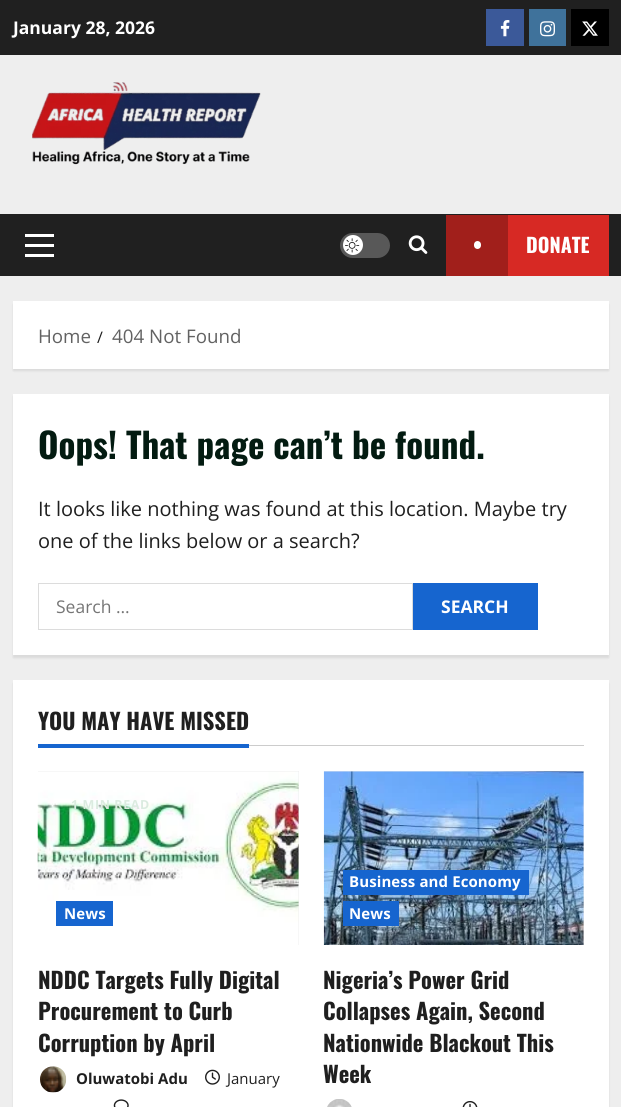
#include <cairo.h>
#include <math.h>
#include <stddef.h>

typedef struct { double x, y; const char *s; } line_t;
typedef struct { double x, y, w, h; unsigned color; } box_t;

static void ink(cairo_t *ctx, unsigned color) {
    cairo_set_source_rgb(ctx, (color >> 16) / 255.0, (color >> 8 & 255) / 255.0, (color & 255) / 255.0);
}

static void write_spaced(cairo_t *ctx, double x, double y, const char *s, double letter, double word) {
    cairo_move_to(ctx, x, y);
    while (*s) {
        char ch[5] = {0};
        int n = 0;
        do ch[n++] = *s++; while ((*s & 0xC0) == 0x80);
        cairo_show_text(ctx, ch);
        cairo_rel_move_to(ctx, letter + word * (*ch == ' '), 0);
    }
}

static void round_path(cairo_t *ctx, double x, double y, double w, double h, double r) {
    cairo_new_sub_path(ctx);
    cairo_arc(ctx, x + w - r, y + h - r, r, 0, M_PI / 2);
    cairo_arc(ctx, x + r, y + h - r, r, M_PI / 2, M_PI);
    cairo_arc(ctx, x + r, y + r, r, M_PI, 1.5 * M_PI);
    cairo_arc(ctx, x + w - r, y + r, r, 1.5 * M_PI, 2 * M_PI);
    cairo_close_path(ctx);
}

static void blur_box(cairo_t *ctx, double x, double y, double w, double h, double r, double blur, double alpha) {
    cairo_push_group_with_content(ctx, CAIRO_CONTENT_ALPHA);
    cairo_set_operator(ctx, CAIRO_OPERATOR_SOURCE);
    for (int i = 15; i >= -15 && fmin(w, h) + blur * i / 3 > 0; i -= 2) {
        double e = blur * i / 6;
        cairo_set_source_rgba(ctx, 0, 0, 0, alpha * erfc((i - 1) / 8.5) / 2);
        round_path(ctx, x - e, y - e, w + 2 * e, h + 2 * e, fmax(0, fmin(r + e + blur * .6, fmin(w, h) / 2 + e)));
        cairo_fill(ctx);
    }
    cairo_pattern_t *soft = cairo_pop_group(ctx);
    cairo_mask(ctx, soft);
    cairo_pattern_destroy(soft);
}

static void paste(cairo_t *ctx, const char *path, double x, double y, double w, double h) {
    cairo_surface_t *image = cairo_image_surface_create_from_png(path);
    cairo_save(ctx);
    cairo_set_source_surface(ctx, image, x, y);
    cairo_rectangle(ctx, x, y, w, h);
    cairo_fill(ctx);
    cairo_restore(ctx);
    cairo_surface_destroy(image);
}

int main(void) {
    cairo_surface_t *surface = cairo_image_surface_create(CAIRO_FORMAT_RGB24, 621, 1107);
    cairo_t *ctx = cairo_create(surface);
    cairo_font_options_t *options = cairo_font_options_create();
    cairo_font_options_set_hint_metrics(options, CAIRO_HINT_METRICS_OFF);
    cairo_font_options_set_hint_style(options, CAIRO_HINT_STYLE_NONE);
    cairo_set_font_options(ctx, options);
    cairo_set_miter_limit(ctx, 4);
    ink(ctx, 0xEEEEEE);
    cairo_paint(ctx);
    ink(ctx, 0x202020);
    cairo_rectangle(ctx, 0, 0, 621, 55);
    cairo_fill(ctx);
    cairo_select_font_face(ctx, "Open Sans", CAIRO_FONT_SLANT_NORMAL, CAIRO_FONT_WEIGHT_BOLD);
    cairo_set_font_size(ctx, 17.5);
    ink(ctx, 0xFFFFFF);
    cairo_move_to(ctx, 13, 34);
    cairo_show_text(ctx, "January 28, 2026");
    ink(ctx, 0x3B5999);
    cairo_rectangle(ctx, 486, 9, 38, 37);
    cairo_fill(ctx);
    paste(ctx, "media/1.png", 500, 20, 10, 17);
    ink(ctx, 0x3F729B);
    cairo_rectangle(ctx, 529, 9, 37, 37);
    cairo_fill(ctx);
    paste(ctx, "media/2.png", 540, 21, 15, 16);
    ink(ctx, 0x000000);
    cairo_rectangle(ctx, 571, 9, 38, 37);
    cairo_fill(ctx);
    paste(ctx, "media/3.png", 582, 21, 16, 15);
    paste(ctx, "media/4.png", 32, 82, 229, 83);
    {
        static const box_t items[] = {
            {0, 214, 621, 62, 0x202020},
            {25, 244, 29, 3, 0xFFFFFF},
            {25, 234, 29, 3, 0xFFFFFF},
            {25, 254, 29, 3, 0xFFFFFF},
        };
        for (size_t i = 0; i < sizeof items / sizeof *items; i++) {
            ink(ctx, items[i].color);
            cairo_rectangle(ctx, items[i].x, items[i].y, items[i].w, items[i].h);
            cairo_fill(ctx);
        }
    }
    ink(ctx, 0x585858);
    round_path(ctx, 340, 233, 50, 25, 12.5);
    cairo_fill(ctx);
    ink(ctx, 0xFFFFFF);
    cairo_arc(ctx, 353, 245, 10, 0, 2 * M_PI);
    cairo_fill(ctx);
    paste(ctx, "media/5.png", 345, 238, 15, 15);
    paste(ctx, "media/6.png", 408, 235, 20, 19);
    ink(ctx, 0xD72924);
    cairo_rectangle(ctx, 508, 215, 101, 61);
    cairo_fill(ctx);
    ink(ctx, 0xA11F1B);
    cairo_rectangle(ctx, 446, 215, 62, 61);
    cairo_fill(ctx);
    ink(ctx, 0xFFFFFF);
    round_path(ctx, 474, 241, 7, 8, 3.5);
    cairo_fill(ctx);
    cairo_select_font_face(ctx, "Oswald", CAIRO_FONT_SLANT_NORMAL, CAIRO_FONT_WEIGHT_BOLD);
    cairo_set_font_size(ctx, 20);
    cairo_move_to(ctx, 526, 253);
    cairo_show_text(ctx, "DONATE");
    ink(ctx, 0x000000);
    blur_box(ctx, 13, 304, 596, 67, 0, 1, 0.08);
    ink(ctx, 0xFFFFFF);
    cairo_rectangle(ctx, 13, 301, 596, 68);
    cairo_fill(ctx);
    cairo_select_font_face(ctx, "Open Sans", CAIRO_FONT_SLANT_NORMAL, CAIRO_FONT_WEIGHT_NORMAL);
    cairo_set_font_size(ctx, 18.75);
    ink(ctx, 0x626262);
    cairo_move_to(ctx, 38, 343);
    cairo_show_text(ctx, "Home");
    cairo_set_font_size(ctx, 16);
    ink(ctx, 0x1F1F1F);
    cairo_move_to(ctx, 97, 343);
    cairo_show_text(ctx, "/");
    cairo_set_font_size(ctx, 18.75);
    ink(ctx, 0x626262);
    cairo_move_to(ctx, 112, 343);
    cairo_show_text(ctx, "404 Not Found");
    ink(ctx, 0x000000);
    blur_box(ctx, 13, 396, 596, 262, 0, 1, 0.08);
    ink(ctx, 0xFFFFFF);
    cairo_rectangle(ctx, 13, 394, 596, 261);
    cairo_fill(ctx);
    cairo_select_font_face(ctx, "Oswald", CAIRO_FONT_SLANT_NORMAL, CAIRO_FONT_WEIGHT_BOLD);
    cairo_set_font_size(ctx, 35);
    ink(ctx, 0x031B11);
    cairo_move_to(ctx, 38, 459);
    cairo_show_text(ctx, "Oops! That page can’t be found.");
    cairo_select_font_face(ctx, "Open Sans", CAIRO_FONT_SLANT_NORMAL, CAIRO_FONT_WEIGHT_NORMAL);
    cairo_set_font_size(ctx, 20);
    ink(ctx, 0x1F1F1F);
    cairo_move_to(ctx, 38, 516);
    cairo_show_text(ctx, "It looks like nothing was found at this location. Maybe try");
    cairo_move_to(ctx, 38, 548);
    cairo_show_text(ctx, "one of the links below or a search?");
    cairo_rectangle(ctx, 38.5, 583.5, 374, 46);
    ink(ctx, 0xDCDCDC);
    cairo_set_line_width(ctx, 1);
    cairo_stroke(ctx);
    cairo_set_font_size(ctx, 17.5);
    ink(ctx, 0x757575);
    cairo_move_to(ctx, 56, 613);
    cairo_show_text(ctx, "Search …");
    ink(ctx, 0x1665CF);
    cairo_rectangle(ctx, 413, 583, 125, 47);
    cairo_fill(ctx);
    cairo_select_font_face(ctx, "Open Sans", CAIRO_FONT_SLANT_NORMAL, CAIRO_FONT_WEIGHT_BOLD);
    ink(ctx, 0xFFFFFF);
    cairo_move_to(ctx, 441, 613);
    cairo_show_text(ctx, "SEARCH");
    ink(ctx, 0x000000);
    blur_box(ctx, 13, 683, 596, 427, 0, 1, 0.08);
    ink(ctx, 0xFFFFFF);
    cairo_rectangle(ctx, 13, 680, 596, 427);
    cairo_fill(ctx);
    ink(ctx, 0xCCCCCC);
    cairo_rectangle(ctx, 249, 745, 335, 1);
    cairo_fill(ctx);
    cairo_select_font_face(ctx, "Oswald", CAIRO_FONT_SLANT_NORMAL, CAIRO_FONT_WEIGHT_BOLD);
    cairo_set_font_size(ctx, 22.5);
    ink(ctx, 0x1F1F1F);
    cairo_move_to(ctx, 38, 730);
    cairo_show_text(ctx, "YOU MAY HAVE MISSED");
    ink(ctx, 0x1665CF);
    cairo_rectangle(ctx, 38, 744, 211, 4);
    cairo_fill(ctx);
    ink(ctx, 0xECECEC);
    cairo_rectangle(ctx, 38, 771, 261, 174);
    cairo_fill(ctx);
    paste(ctx, "media/7.png", 37, 771, 262, 174);
    cairo_select_font_face(ctx, "Open Sans", CAIRO_FONT_SLANT_NORMAL, CAIRO_FONT_WEIGHT_BOLD);
    cairo_set_font_size(ctx, 12.5);
    ink(ctx, 0xDBEBE0);
    write_spaced(ctx, 71, 809, "1 MIN READ", 0.6, 0);
    ink(ctx, 0x1665CF);
    cairo_rectangle(ctx, 56, 901, 57, 25);
    cairo_fill(ctx);
    cairo_set_font_size(ctx, 15);
    ink(ctx, 0xFFFFFF);
    write_spaced(ctx, 64, 919, "News", 0.1, 0);
    cairo_select_font_face(ctx, "Oswald", CAIRO_FONT_SLANT_NORMAL, CAIRO_FONT_WEIGHT_BOLD);
    cairo_set_font_size(ctx, 22.5);
    ink(ctx, 0x1F1F1F);
    {
        static const line_t items[] = {
            {38, 989, "NDDC Targets Fully Digital"},
            {38, 1020, "Procurement to Curb"},
            {38, 1052, "Corruption by April"},
        };
        for (size_t i = 0; i < sizeof items / sizeof *items; i++) {
            cairo_move_to(ctx, items[i].x, items[i].y);
            cairo_show_text(ctx, items[i].s);
        }
    }
    paste(ctx, "media/8.png", 40, 1066, 27, 27);
    cairo_select_font_face(ctx, "Open Sans", CAIRO_FONT_SLANT_NORMAL, CAIRO_FONT_WEIGHT_BOLD);
    cairo_set_font_size(ctx, 15);
    cairo_move_to(ctx, 76, 1084);
    cairo_show_text(ctx, "Oluwatobi Adu");
    paste(ctx, "media/9.png", 205, 1069, 15, 16);
    cairo_select_font_face(ctx, "Open Sans", CAIRO_FONT_SLANT_NORMAL, CAIRO_FONT_WEIGHT_NORMAL);
    cairo_move_to(ctx, 227, 1084);
    cairo_show_text(ctx, "January");
    paste(ctx, "media/10.png", 113, 1099, 16, 8);
    ink(ctx, 0xECECEC);
    cairo_rectangle(ctx, 324, 771, 260, 174);
    cairo_fill(ctx);
    paste(ctx, "media/11.png", 323, 771, 261, 174);
    ink(ctx, 0x1665CF);
    cairo_rectangle(ctx, 343, 870, 186, 25);
    cairo_fill(ctx);
    cairo_select_font_face(ctx, "Open Sans", CAIRO_FONT_SLANT_NORMAL, CAIRO_FONT_WEIGHT_BOLD);
    ink(ctx, 0xFFFFFF);
    write_spaced(ctx, 349, 887, "Business and Economy", 0.1, 0);
    ink(ctx, 0x1665CF);
    cairo_rectangle(ctx, 343, 901, 56, 25);
    cairo_fill(ctx);
    ink(ctx, 0xFFFFFF);
    write_spaced(ctx, 349, 919, "News", 0.1, 0);
    cairo_select_font_face(ctx, "Oswald", CAIRO_FONT_SLANT_NORMAL, CAIRO_FONT_WEIGHT_BOLD);
    cairo_set_font_size(ctx, 22.5);
    ink(ctx, 0x1F1F1F);
    {
        static const line_t items[] = {
            {323, 989, "Nigeria’s Power Grid"},
            {323, 1020, "Collapses Again, Second"},
            {323, 1052, "Nationwide Blackout This"},
            {323, 1083, "Week"},
        };
        for (size_t i = 0; i < sizeof items / sizeof *items; i++) {
            cairo_move_to(ctx, items[i].x, items[i].y);
            cairo_show_text(ctx, items[i].s);
        }
    }
    paste(ctx, "media/12.png", 327, 1099, 25, 8);
    paste(ctx, "media/13.png", 462, 1101, 16, 6);
    cairo_surface_write_to_png(surface, "image.png");
    cairo_font_options_destroy(options);
    cairo_destroy(ctx);
    cairo_surface_destroy(surface);
    return 0;
}
